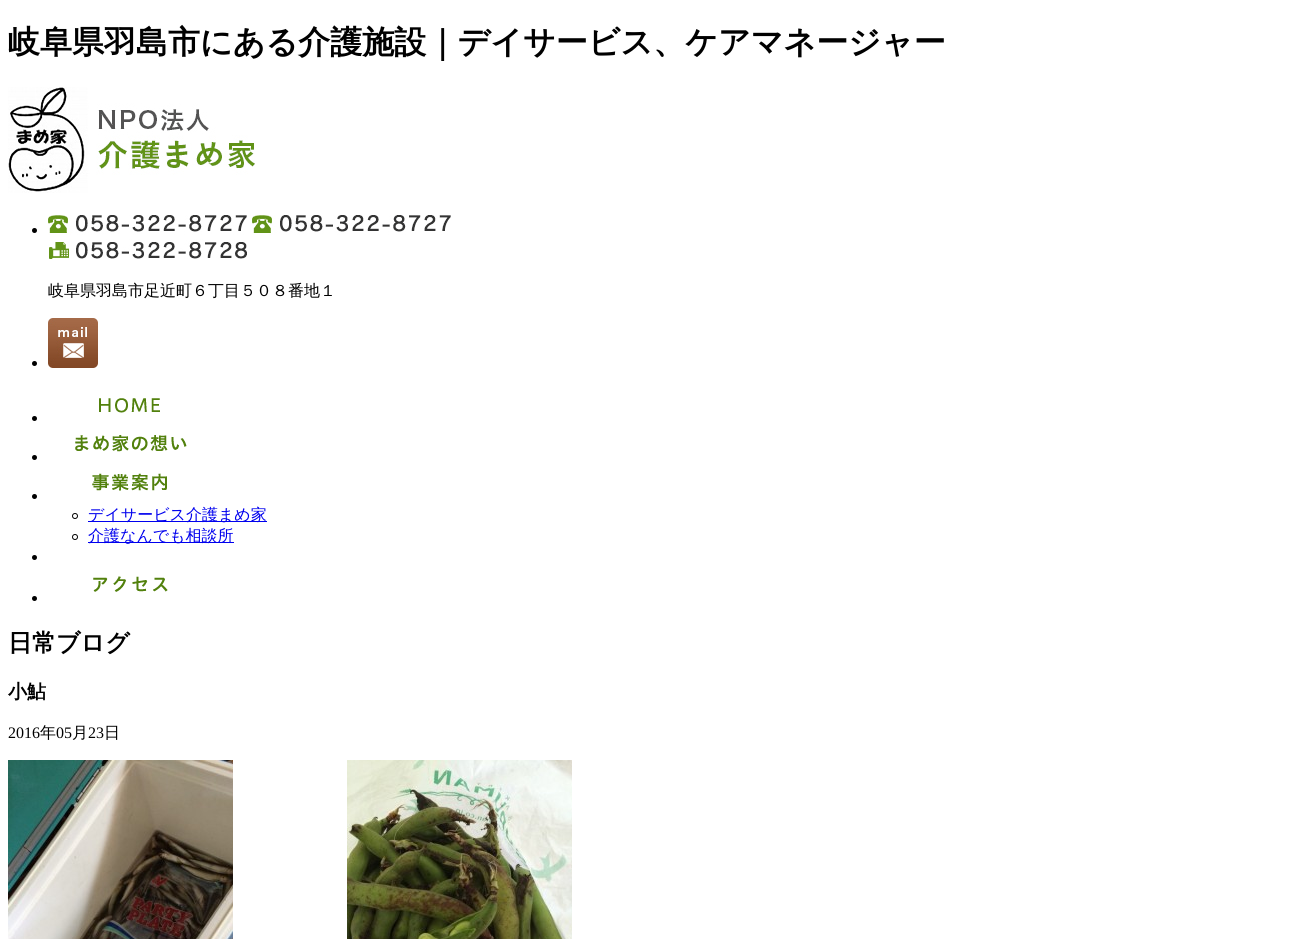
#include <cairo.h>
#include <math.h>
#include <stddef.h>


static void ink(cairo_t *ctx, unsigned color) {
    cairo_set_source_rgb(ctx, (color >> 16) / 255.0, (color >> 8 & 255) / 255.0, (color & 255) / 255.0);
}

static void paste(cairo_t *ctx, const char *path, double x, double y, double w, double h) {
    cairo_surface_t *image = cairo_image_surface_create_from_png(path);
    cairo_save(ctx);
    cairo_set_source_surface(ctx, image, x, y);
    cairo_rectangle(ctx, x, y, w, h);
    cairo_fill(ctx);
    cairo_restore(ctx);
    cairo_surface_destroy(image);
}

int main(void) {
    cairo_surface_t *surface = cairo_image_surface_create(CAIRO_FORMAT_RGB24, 1306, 939);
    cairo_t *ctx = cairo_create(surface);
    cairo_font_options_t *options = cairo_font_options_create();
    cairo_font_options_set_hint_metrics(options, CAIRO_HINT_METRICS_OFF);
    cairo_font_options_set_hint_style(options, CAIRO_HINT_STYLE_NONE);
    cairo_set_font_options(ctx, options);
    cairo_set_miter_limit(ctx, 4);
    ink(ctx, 0xFFFFFF);
    cairo_paint(ctx);
    cairo_select_font_face(ctx, "WenQuanYi Zen Hei", CAIRO_FONT_SLANT_NORMAL, CAIRO_FONT_WEIGHT_BOLD);
    cairo_set_font_size(ctx, 32);
    ink(ctx, 0x000000);
    cairo_move_to(ctx, 8, 53);
    cairo_show_text(ctx, "岐阜県羽島市にある介護施設｜デイサービス、ケアマネージャー");
    paste(ctx, "media/1.png", 8, 87, 247, 106);
    cairo_arc(ctx, 34.5, 230.5, 2.5, 0, 2 * M_PI);
    cairo_fill(ctx);
    paste(ctx, "media/2.png", 48, 215, 199, 20);
    paste(ctx, "media/2.png", 252, 215, 199, 20);
    paste(ctx, "media/3.png", 49, 239, 198, 20);
    cairo_select_font_face(ctx, "WenQuanYi Zen Hei Medium", CAIRO_FONT_SLANT_NORMAL, CAIRO_FONT_WEIGHT_NORMAL);
    cairo_set_font_size(ctx, 16);
    cairo_move_to(ctx, 48, 296);
    cairo_show_text(ctx, "岐阜県羽島市足近町６丁目５０８番地１");
    cairo_new_path(ctx);
    cairo_arc(ctx, 34.5, 363.5, 2.5, 0, 2 * M_PI);
    cairo_fill(ctx);
    paste(ctx, "media/4.png", 48, 318, 50, 50);
    paste(ctx, "media/5.png", 99, 398, 61, 15);
    cairo_arc(ctx, 34.5, 418.5, 2.5, 0, 2 * M_PI);
    cairo_fill(ctx);
    paste(ctx, "media/6.png", 75, 435, 112, 17);
    cairo_arc(ctx, 34.5, 457.5, 2.5, 0, 2 * M_PI);
    cairo_fill(ctx);
    paste(ctx, "media/7.png", 92, 473, 75, 18);
    cairo_arc(ctx, 34.5, 496.5, 2.5, 0, 2 * M_PI);
    cairo_fill(ctx);
    cairo_arc(ctx, 75, 516, 2.5, 0, 2 * M_PI);
    cairo_set_line_width(ctx, 1);
    cairo_stroke(ctx);
    ink(ctx, 0x0000EE);
    cairo_rectangle(ctx, 88, 521, 179, 1);
    cairo_fill(ctx);
    cairo_move_to(ctx, 88, 520);
    cairo_show_text(ctx, "デイサービス介護まめ家");
    cairo_new_path(ctx);
    cairo_arc(ctx, 75, 537, 2.5, 0, 2 * M_PI);
    ink(ctx, 0x000000);
    cairo_stroke(ctx);
    ink(ctx, 0x0000EE);
    cairo_rectangle(ctx, 88, 542, 146, 1);
    cairo_fill(ctx);
    cairo_move_to(ctx, 88, 541);
    cairo_show_text(ctx, "介護なんでも相談所");
    ink(ctx, 0x000000);
    cairo_new_path(ctx);
    cairo_arc(ctx, 34.5, 557.5, 2.5, 0, 2 * M_PI);
    cairo_fill(ctx);
    paste(ctx, "media/8.png", 93, 576, 75, 16);
    cairo_arc(ctx, 34.5, 598.5, 2.5, 0, 2 * M_PI);
    cairo_fill(ctx);
    cairo_select_font_face(ctx, "WenQuanYi Zen Hei", CAIRO_FONT_SLANT_NORMAL, CAIRO_FONT_WEIGHT_BOLD);
    cairo_set_font_size(ctx, 24);
    cairo_move_to(ctx, 8, 651);
    cairo_show_text(ctx, "日常ブログ");
    cairo_set_font_size(ctx, 19);
    cairo_move_to(ctx, 8, 698);
    cairo_show_text(ctx, "小鮎");
    cairo_select_font_face(ctx, "Liberation Serif", CAIRO_FONT_SLANT_NORMAL, CAIRO_FONT_WEIGHT_NORMAL);
    cairo_set_font_size(ctx, 16);
    cairo_move_to(ctx, 8, 738);
    cairo_show_text(ctx, "2016");
    cairo_select_font_face(ctx, "WenQuanYi Zen Hei Medium", CAIRO_FONT_SLANT_NORMAL, CAIRO_FONT_WEIGHT_NORMAL);
    cairo_move_to(ctx, 40, 738);
    cairo_show_text(ctx, "年");
    cairo_select_font_face(ctx, "Liberation Serif", CAIRO_FONT_SLANT_NORMAL, CAIRO_FONT_WEIGHT_NORMAL);
    cairo_move_to(ctx, 56, 738);
    cairo_show_text(ctx, "05");
    cairo_select_font_face(ctx, "WenQuanYi Zen Hei Medium", CAIRO_FONT_SLANT_NORMAL, CAIRO_FONT_WEIGHT_NORMAL);
    cairo_move_to(ctx, 72, 738);
    cairo_show_text(ctx, "月");
    cairo_select_font_face(ctx, "Liberation Serif", CAIRO_FONT_SLANT_NORMAL, CAIRO_FONT_WEIGHT_NORMAL);
    cairo_move_to(ctx, 88, 738);
    cairo_show_text(ctx, "23");
    cairo_select_font_face(ctx, "WenQuanYi Zen Hei Medium", CAIRO_FONT_SLANT_NORMAL, CAIRO_FONT_WEIGHT_NORMAL);
    cairo_move_to(ctx, 104, 738);
    cairo_show_text(ctx, "日");
    paste(ctx, "media/9.png", 8, 760, 225, 179);
    paste(ctx, "media/10.png", 347, 760, 225, 179);
    cairo_surface_write_to_png(surface, "image.png");
    cairo_font_options_destroy(options);
    cairo_destroy(ctx);
    cairo_surface_destroy(surface);
    return 0;
}
